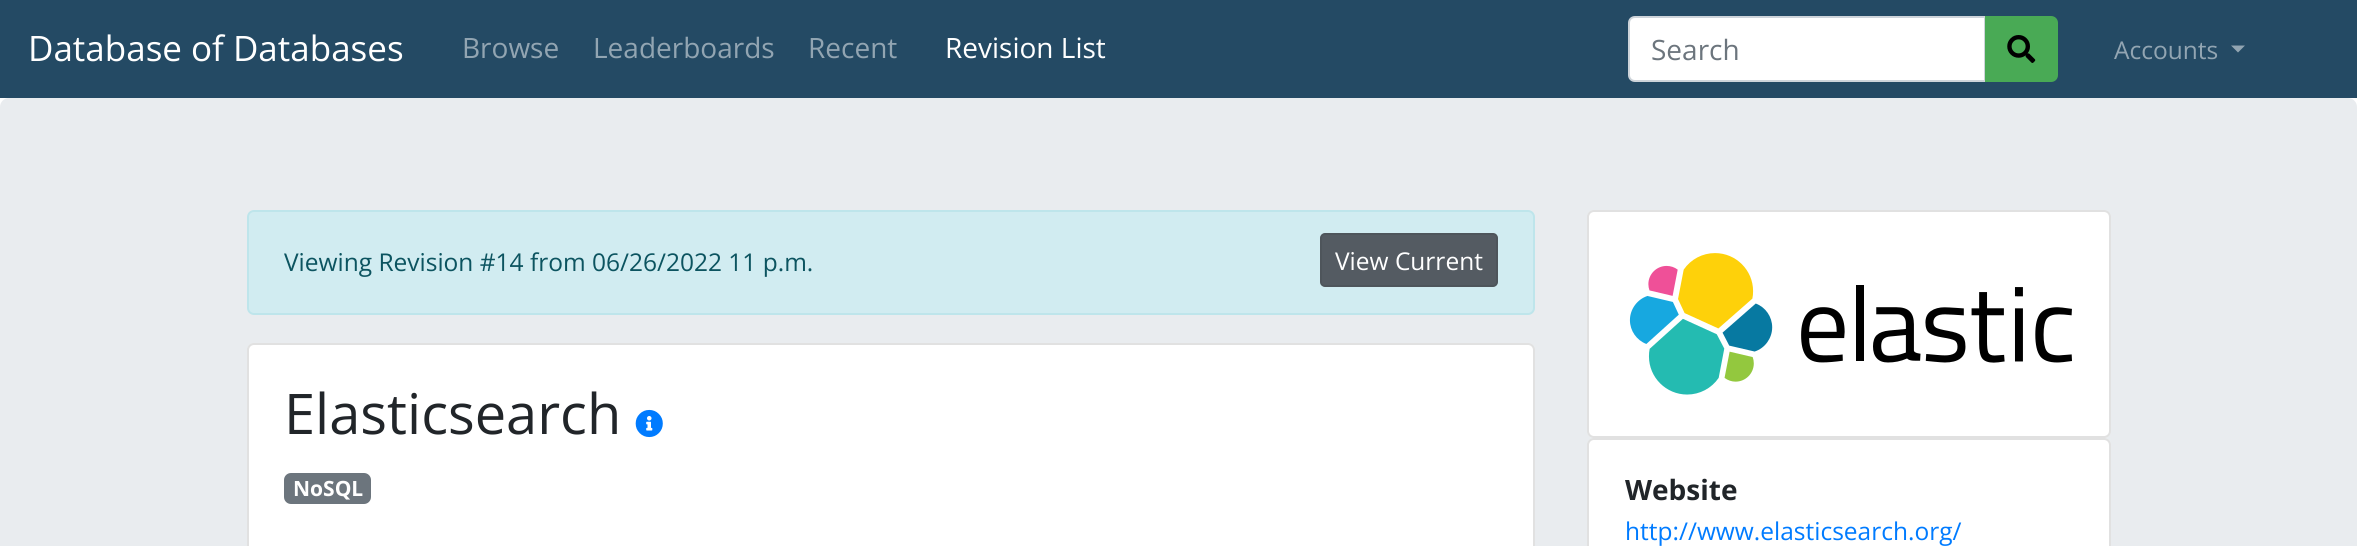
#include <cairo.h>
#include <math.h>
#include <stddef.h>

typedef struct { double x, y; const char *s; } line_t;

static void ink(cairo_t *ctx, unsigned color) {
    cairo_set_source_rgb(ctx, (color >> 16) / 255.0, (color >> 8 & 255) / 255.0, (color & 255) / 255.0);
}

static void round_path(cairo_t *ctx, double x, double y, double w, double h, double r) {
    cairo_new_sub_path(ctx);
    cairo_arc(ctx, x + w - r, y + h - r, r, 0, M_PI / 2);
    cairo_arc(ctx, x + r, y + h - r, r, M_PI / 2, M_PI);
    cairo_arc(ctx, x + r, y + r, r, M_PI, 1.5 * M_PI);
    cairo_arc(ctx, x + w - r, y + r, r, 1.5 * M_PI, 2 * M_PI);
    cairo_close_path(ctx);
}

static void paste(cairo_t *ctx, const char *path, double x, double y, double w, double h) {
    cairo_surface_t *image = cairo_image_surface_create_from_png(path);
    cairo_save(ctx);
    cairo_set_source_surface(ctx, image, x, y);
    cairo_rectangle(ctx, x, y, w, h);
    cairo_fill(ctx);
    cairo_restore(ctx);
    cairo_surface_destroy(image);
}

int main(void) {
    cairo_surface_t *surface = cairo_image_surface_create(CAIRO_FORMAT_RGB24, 2357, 546);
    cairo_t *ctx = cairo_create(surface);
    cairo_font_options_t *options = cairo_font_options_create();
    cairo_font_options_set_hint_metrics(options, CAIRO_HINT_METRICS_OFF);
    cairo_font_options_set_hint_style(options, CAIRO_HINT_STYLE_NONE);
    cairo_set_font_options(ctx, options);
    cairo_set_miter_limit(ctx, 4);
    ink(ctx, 0xFFFFFF);
    cairo_paint(ctx);
    ink(ctx, 0x244A64);
    cairo_rectangle(ctx, 0, 0, 2357, 98);
    cairo_fill(ctx);
    cairo_select_font_face(ctx, "Open Sans", CAIRO_FONT_SLANT_NORMAL, CAIRO_FONT_WEIGHT_NORMAL);
    cairo_set_font_size(ctx, 35);
    ink(ctx, 0xFFFFFF);
    cairo_move_to(ctx, 28, 61);
    cairo_show_text(ctx, "Database of Databases");
    cairo_set_font_size(ctx, 28);
    ink(ctx, 0x92A5B2);
    {
        static const line_t items[] = {
            {462, 58, "Browse"},
            {593, 58, "Leaderboards"},
            {808, 58, "Recent"},
        };
        for (size_t i = 0; i < sizeof items / sizeof *items; i++) {
            cairo_move_to(ctx, items[i].x, items[i].y);
            cairo_show_text(ctx, items[i].s);
        }
    }
    ink(ctx, 0xFFFFFF);
    cairo_move_to(ctx, 945, 58);
    cairo_show_text(ctx, "Revision List");
    cairo_new_path(ctx);
    cairo_move_to(ctx, 1635, 17);
    cairo_line_to(ctx, 1985, 17);
    cairo_line_to(ctx, 1985, 81);
    cairo_line_to(ctx, 1635, 81);
    cairo_curve_to(ctx, 1631.5, 81, 1629, 78.5, 1629, 75);
    cairo_line_to(ctx, 1629, 23);
    cairo_curve_to(ctx, 1629, 19.5, 1631.5, 17, 1635, 17);
    cairo_close_path(ctx);
    cairo_fill_preserve(ctx);
    ink(ctx, 0xCED4DA);
    cairo_stroke(ctx);
    ink(ctx, 0x6C757D);
    cairo_move_to(ctx, 1651, 60);
    cairo_show_text(ctx, "Search");
    ink(ctx, 0x49AA55);
    cairo_new_path(ctx);
    cairo_move_to(ctx, 1985, 16);
    cairo_line_to(ctx, 2051, 16);
    cairo_curve_to(ctx, 2055, 16, 2058, 19, 2058, 23);
    cairo_line_to(ctx, 2058, 75);
    cairo_curve_to(ctx, 2058, 79, 2055, 82, 2051, 82);
    cairo_line_to(ctx, 1985, 82);
    cairo_close_path(ctx);
    cairo_fill(ctx);
    paste(ctx, "media/1.png", 2007, 35, 29, 28);
    cairo_set_font_size(ctx, 24.5);
    ink(ctx, 0x92A5B2);
    cairo_move_to(ctx, 2114, 59);
    cairo_show_text(ctx, "Accounts");
    cairo_new_path(ctx);
    cairo_move_to(ctx, 2231, 45.5);
    cairo_line_to(ctx, 2245, 45.5);
    cairo_line_to(ctx, 2238, 52.5);
    cairo_close_path(ctx);
    cairo_fill(ctx);
    ink(ctx, 0xE9ECEF);
    round_path(ctx, 0, 98, 2357, 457, 9);
    cairo_fill(ctx);
    ink(ctx, 0xD1ECF1);
    round_path(ctx, 248, 211, 1286, 103, 6);
    cairo_fill_preserve(ctx);
    ink(ctx, 0xBEE5EB);
    cairo_stroke(ctx);
    ink(ctx, 0x0C5460);
    cairo_move_to(ctx, 284, 271);
    cairo_show_text(ctx, "Viewing Revision #14 from 06/26/2022 11 p.m.");
    ink(ctx, 0x545B62);
    round_path(ctx, 1321, 234, 176, 52, 4);
    cairo_fill_preserve(ctx);
    ink(ctx, 0x4E555B);
    cairo_stroke(ctx);
    ink(ctx, 0xFFFFFF);
    cairo_move_to(ctx, 1335, 270);
    cairo_show_text(ctx, "View Current");
    round_path(ctx, 247, 343, 1288, 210, 7);
    cairo_fill(ctx);
    round_path(ctx, 248, 344, 1286, 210, 6);
    cairo_set_source_rgba(ctx, 0, 0, 0, 0.12);
    cairo_stroke(ctx);
    cairo_set_font_size(ctx, 56);
    ink(ctx, 0x212529);
    cairo_move_to(ctx, 284, 434);
    cairo_show_text(ctx, "Elasticsearch");
    paste(ctx, "media/2.png", 635, 409, 28, 29);
    ink(ctx, 0x6C757D);
    round_path(ctx, 284, 473, 87, 31, 7);
    cairo_fill(ctx);
    cairo_select_font_face(ctx, "Open Sans", CAIRO_FONT_SLANT_NORMAL, CAIRO_FONT_WEIGHT_BOLD);
    cairo_set_font_size(ctx, 21);
    ink(ctx, 0xFFFFFF);
    cairo_move_to(ctx, 293, 496);
    cairo_show_text(ctx, "NoSQL");
    round_path(ctx, 1587, 210, 524, 228, 7);
    cairo_fill(ctx);
    round_path(ctx, 1588, 211, 522, 226, 6);
    cairo_set_source_rgba(ctx, 0, 0, 0, 0.12);
    cairo_stroke(ctx);
    paste(ctx, "media/3.png", 1629, 253, 443, 142);
    ink(ctx, 0xFFFFFF);
    round_path(ctx, 1587, 438, 524, 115, 7);
    cairo_fill(ctx);
    round_path(ctx, 1588, 439, 522, 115, 6);
    cairo_set_source_rgba(ctx, 0, 0, 0, 0.12);
    cairo_stroke(ctx);
    cairo_set_font_size(ctx, 28);
    ink(ctx, 0x212529);
    cairo_move_to(ctx, 1625, 500);
    cairo_show_text(ctx, "Website");
    cairo_select_font_face(ctx, "Open Sans", CAIRO_FONT_SLANT_NORMAL, CAIRO_FONT_WEIGHT_NORMAL);
    cairo_set_font_size(ctx, 24.5);
    ink(ctx, 0x007BFF);
    cairo_move_to(ctx, 1625, 540);
    cairo_show_text(ctx, "http://www.elasticsearch.org/");
    cairo_surface_write_to_png(surface, "image.png");
    cairo_font_options_destroy(options);
    cairo_destroy(ctx);
    cairo_surface_destroy(surface);
    return 0;
}
